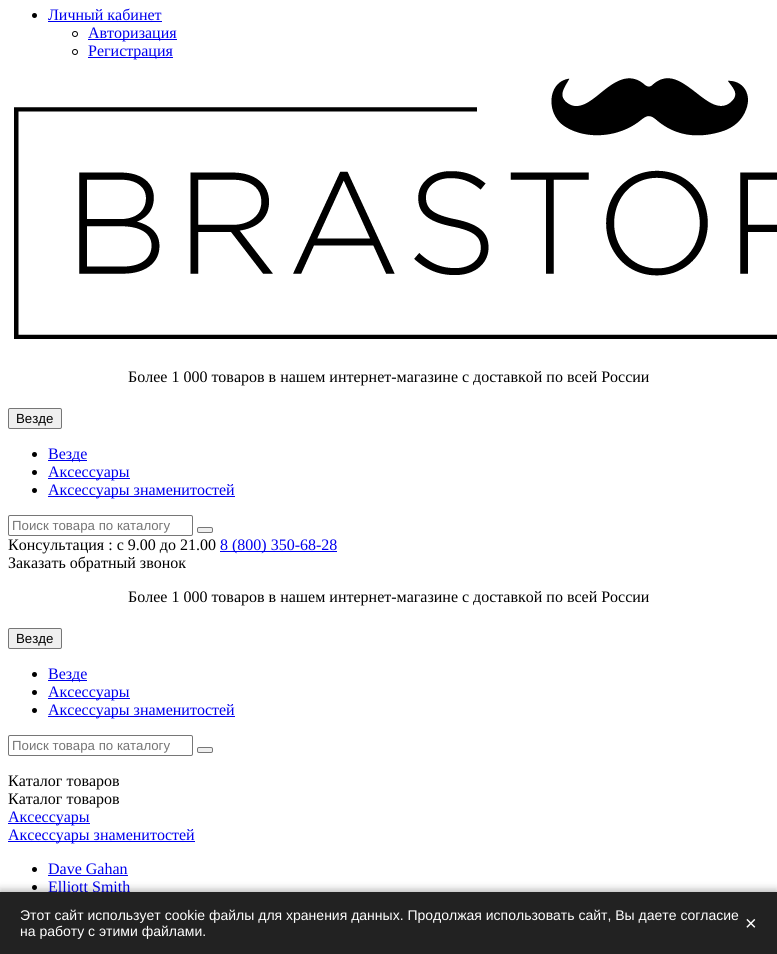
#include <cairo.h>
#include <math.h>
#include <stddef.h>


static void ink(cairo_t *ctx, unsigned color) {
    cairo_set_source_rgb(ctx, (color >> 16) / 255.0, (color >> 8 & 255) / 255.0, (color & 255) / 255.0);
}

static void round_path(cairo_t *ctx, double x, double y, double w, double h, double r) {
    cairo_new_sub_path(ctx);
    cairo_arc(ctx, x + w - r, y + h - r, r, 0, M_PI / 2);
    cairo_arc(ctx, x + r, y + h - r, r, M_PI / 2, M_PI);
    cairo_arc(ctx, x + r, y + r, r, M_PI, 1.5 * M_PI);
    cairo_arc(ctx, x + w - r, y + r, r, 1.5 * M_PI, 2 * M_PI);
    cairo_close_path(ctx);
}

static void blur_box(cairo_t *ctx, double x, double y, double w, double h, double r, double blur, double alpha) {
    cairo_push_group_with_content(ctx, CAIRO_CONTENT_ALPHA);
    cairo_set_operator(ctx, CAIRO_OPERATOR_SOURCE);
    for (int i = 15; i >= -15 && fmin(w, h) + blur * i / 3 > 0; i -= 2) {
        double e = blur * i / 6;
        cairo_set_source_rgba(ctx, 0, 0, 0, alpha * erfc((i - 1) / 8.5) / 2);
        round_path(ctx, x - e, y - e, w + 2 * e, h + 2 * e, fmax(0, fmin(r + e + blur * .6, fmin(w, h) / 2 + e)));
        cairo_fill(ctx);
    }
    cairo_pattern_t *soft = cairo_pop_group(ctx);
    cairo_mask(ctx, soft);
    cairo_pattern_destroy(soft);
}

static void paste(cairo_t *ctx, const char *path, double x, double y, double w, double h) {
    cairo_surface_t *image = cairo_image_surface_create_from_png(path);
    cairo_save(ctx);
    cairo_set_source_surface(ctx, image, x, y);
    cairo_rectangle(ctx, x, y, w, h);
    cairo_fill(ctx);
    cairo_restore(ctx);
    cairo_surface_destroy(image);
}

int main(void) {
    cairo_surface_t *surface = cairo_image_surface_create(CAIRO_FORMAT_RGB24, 777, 954);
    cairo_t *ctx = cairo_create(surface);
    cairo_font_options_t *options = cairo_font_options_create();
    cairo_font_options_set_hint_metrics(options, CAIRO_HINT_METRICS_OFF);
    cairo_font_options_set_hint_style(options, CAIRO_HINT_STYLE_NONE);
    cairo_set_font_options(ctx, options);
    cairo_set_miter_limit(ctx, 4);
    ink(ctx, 0xFFFFFF);
    cairo_paint(ctx);
    ink(ctx, 0x000000);
    cairo_arc(ctx, 34.5, 15.5, 2.5, 0, 2 * M_PI);
    cairo_fill(ctx);
    cairo_select_font_face(ctx, "Liberation Serif", CAIRO_FONT_SLANT_NORMAL, CAIRO_FONT_WEIGHT_NORMAL);
    cairo_set_font_size(ctx, 16);
    ink(ctx, 0x0000EE);
    cairo_move_to(ctx, 48, 20);
    cairo_show_text(ctx, "Личный кабинет");
    cairo_rectangle(ctx, 48, 21, 114, 1);
    cairo_fill(ctx);
    cairo_arc(ctx, 75, 34, 2.5, 0, 2 * M_PI);
    ink(ctx, 0x000000);
    cairo_set_line_width(ctx, 1);
    cairo_stroke(ctx);
    ink(ctx, 0x0000EE);
    cairo_rectangle(ctx, 88, 39, 89, 1);
    cairo_fill(ctx);
    cairo_move_to(ctx, 88, 38);
    cairo_show_text(ctx, "Авторизация");
    cairo_new_path(ctx);
    cairo_arc(ctx, 75, 52, 2.5, 0, 2 * M_PI);
    ink(ctx, 0x000000);
    cairo_stroke(ctx);
    ink(ctx, 0x0000EE);
    cairo_rectangle(ctx, 88, 57, 85, 1);
    cairo_fill(ctx);
    cairo_move_to(ctx, 88, 56);
    cairo_show_text(ctx, "Регистрация");
    paste(ctx, "media/1.png", 14, 78, 763, 261);
    ink(ctx, 0x000000);
    cairo_move_to(ctx, 128, 382);
    cairo_show_text(ctx, "Более 1 000 товаров в нашем интернет-магазине с доставкой по всей России");
    ink(ctx, 0xEFEFEF);
    round_path(ctx, 8.5, 408.5, 53, 20, 1.5);
    cairo_fill_preserve(ctx);
    ink(ctx, 0x767676);
    cairo_stroke(ctx);
    cairo_select_font_face(ctx, "Liberation Sans", CAIRO_FONT_SLANT_NORMAL, CAIRO_FONT_WEIGHT_NORMAL);
    cairo_set_font_size(ctx, 13.25);
    ink(ctx, 0x000000);
    cairo_move_to(ctx, 16, 423);
    cairo_show_text(ctx, "Везде");
    cairo_new_path(ctx);
    cairo_arc(ctx, 34.5, 454.5, 2.5, 0, 2 * M_PI);
    cairo_fill(ctx);
    ink(ctx, 0x0000EE);
    cairo_rectangle(ctx, 48, 460, 39, 1);
    cairo_fill(ctx);
    cairo_select_font_face(ctx, "Liberation Serif", CAIRO_FONT_SLANT_NORMAL, CAIRO_FONT_WEIGHT_NORMAL);
    cairo_set_font_size(ctx, 16);
    cairo_move_to(ctx, 48, 459);
    cairo_show_text(ctx, "Везде");
    ink(ctx, 0x000000);
    cairo_new_path(ctx);
    cairo_arc(ctx, 34.5, 472.5, 2.5, 0, 2 * M_PI);
    cairo_fill(ctx);
    ink(ctx, 0x0000EE);
    cairo_rectangle(ctx, 48, 478, 82, 1);
    cairo_fill(ctx);
    cairo_move_to(ctx, 48, 477);
    cairo_show_text(ctx, "Аксессуары");
    ink(ctx, 0x000000);
    cairo_new_path(ctx);
    cairo_arc(ctx, 34.5, 490.5, 2.5, 0, 2 * M_PI);
    cairo_fill(ctx);
    ink(ctx, 0x0000EE);
    cairo_rectangle(ctx, 48, 496, 187, 1);
    cairo_fill(ctx);
    cairo_move_to(ctx, 48, 495);
    cairo_show_text(ctx, "Аксессуары знаменитостей");
    round_path(ctx, 8.5, 515.5, 184, 20, 1.5);
    ink(ctx, 0x767676);
    cairo_stroke(ctx);
    cairo_select_font_face(ctx, "Liberation Sans", CAIRO_FONT_SLANT_NORMAL, CAIRO_FONT_WEIGHT_NORMAL);
    cairo_set_font_size(ctx, 13.25);
    ink(ctx, 0x757575);
    cairo_move_to(ctx, 12, 530);
    cairo_show_text(ctx, "Поиск товара по каталогу");
    ink(ctx, 0xEFEFEF);
    round_path(ctx, 197.5, 527.5, 15, 5, 1.5);
    cairo_fill_preserve(ctx);
    ink(ctx, 0x767676);
    cairo_stroke(ctx);
    cairo_select_font_face(ctx, "Liberation Serif", CAIRO_FONT_SLANT_NORMAL, CAIRO_FONT_WEIGHT_NORMAL);
    cairo_set_font_size(ctx, 16);
    ink(ctx, 0x000000);
    cairo_move_to(ctx, 8, 550);
    cairo_show_text(ctx, "Консультация : с 9.00 до 21.00");
    ink(ctx, 0x0000EE);
    cairo_rectangle(ctx, 220, 551, 117, 1);
    cairo_fill(ctx);
    cairo_move_to(ctx, 220, 550);
    cairo_show_text(ctx, "8 (800) 350-68-28");
    ink(ctx, 0x000000);
    cairo_move_to(ctx, 8, 568);
    cairo_show_text(ctx, "Заказать обратный звонок");
    cairo_move_to(ctx, 128, 602);
    cairo_show_text(ctx, "Более 1 000 товаров в нашем интернет-магазине с доставкой по всей России");
    ink(ctx, 0xEFEFEF);
    round_path(ctx, 8.5, 628.5, 53, 20, 1.5);
    cairo_fill_preserve(ctx);
    ink(ctx, 0x767676);
    cairo_stroke(ctx);
    cairo_select_font_face(ctx, "Liberation Sans", CAIRO_FONT_SLANT_NORMAL, CAIRO_FONT_WEIGHT_NORMAL);
    cairo_set_font_size(ctx, 13.25);
    ink(ctx, 0x000000);
    cairo_move_to(ctx, 16, 643);
    cairo_show_text(ctx, "Везде");
    cairo_new_path(ctx);
    cairo_arc(ctx, 34.5, 674.5, 2.5, 0, 2 * M_PI);
    cairo_fill(ctx);
    ink(ctx, 0x0000EE);
    cairo_rectangle(ctx, 48, 680, 39, 1);
    cairo_fill(ctx);
    cairo_select_font_face(ctx, "Liberation Serif", CAIRO_FONT_SLANT_NORMAL, CAIRO_FONT_WEIGHT_NORMAL);
    cairo_set_font_size(ctx, 16);
    cairo_move_to(ctx, 48, 679);
    cairo_show_text(ctx, "Везде");
    ink(ctx, 0x000000);
    cairo_new_path(ctx);
    cairo_arc(ctx, 34.5, 692.5, 2.5, 0, 2 * M_PI);
    cairo_fill(ctx);
    ink(ctx, 0x0000EE);
    cairo_rectangle(ctx, 48, 698, 82, 1);
    cairo_fill(ctx);
    cairo_move_to(ctx, 48, 697);
    cairo_show_text(ctx, "Аксессуары");
    ink(ctx, 0x000000);
    cairo_new_path(ctx);
    cairo_arc(ctx, 34.5, 710.5, 2.5, 0, 2 * M_PI);
    cairo_fill(ctx);
    ink(ctx, 0x0000EE);
    cairo_rectangle(ctx, 48, 716, 187, 1);
    cairo_fill(ctx);
    cairo_move_to(ctx, 48, 715);
    cairo_show_text(ctx, "Аксессуары знаменитостей");
    round_path(ctx, 8.5, 735.5, 184, 20, 1.5);
    ink(ctx, 0x767676);
    cairo_stroke(ctx);
    cairo_select_font_face(ctx, "Liberation Sans", CAIRO_FONT_SLANT_NORMAL, CAIRO_FONT_WEIGHT_NORMAL);
    cairo_set_font_size(ctx, 13.25);
    ink(ctx, 0x757575);
    cairo_move_to(ctx, 12, 750);
    cairo_show_text(ctx, "Поиск товара по каталогу");
    ink(ctx, 0xEFEFEF);
    round_path(ctx, 197.5, 747.5, 15, 5, 1.5);
    cairo_fill_preserve(ctx);
    ink(ctx, 0x767676);
    cairo_stroke(ctx);
    cairo_select_font_face(ctx, "Liberation Serif", CAIRO_FONT_SLANT_NORMAL, CAIRO_FONT_WEIGHT_NORMAL);
    cairo_set_font_size(ctx, 16);
    ink(ctx, 0x000000);
    cairo_move_to(ctx, 8, 786);
    cairo_show_text(ctx, "Каталог товаров");
    cairo_move_to(ctx, 8, 804);
    cairo_show_text(ctx, "Каталог товаров");
    ink(ctx, 0x0000EE);
    cairo_rectangle(ctx, 8, 823, 82, 1);
    cairo_fill(ctx);
    cairo_move_to(ctx, 8, 822);
    cairo_show_text(ctx, "Аксессуары");
    cairo_rectangle(ctx, 8, 841, 187, 1);
    cairo_fill(ctx);
    cairo_move_to(ctx, 8, 840);
    cairo_show_text(ctx, "Аксессуары знаменитостей");
    ink(ctx, 0x000000);
    cairo_new_path(ctx);
    cairo_arc(ctx, 34.5, 869.5, 2.5, 0, 2 * M_PI);
    cairo_fill(ctx);
    ink(ctx, 0x0000EE);
    cairo_move_to(ctx, 48, 874);
    cairo_show_text(ctx, "Dave Gahan");
    cairo_rectangle(ctx, 48, 875, 80, 1);
    cairo_fill(ctx);
    ink(ctx, 0x000000);
    cairo_arc(ctx, 34.5, 887.5, 2.5, 0, 2 * M_PI);
    cairo_fill(ctx);
    ink(ctx, 0x0000EE);
    cairo_move_to(ctx, 48, 892);
    cairo_show_text(ctx, "Elliott Smith");
    ink(ctx, 0x000000);
    blur_box(ctx, 0, 890, 777, 62, 0, 4, 0.3);
    ink(ctx, 0x222222);
    cairo_rectangle(ctx, 0, 892, 777, 62);
    cairo_fill(ctx);
    cairo_select_font_face(ctx, "Liberation Sans", CAIRO_FONT_SLANT_NORMAL, CAIRO_FONT_WEIGHT_NORMAL);
    cairo_set_font_size(ctx, 14);
    ink(ctx, 0xFFFFFF);
    cairo_move_to(ctx, 20, 920);
    cairo_show_text(ctx, "Этот сайт использует cookie файлы для хранения данных. Продолжая использовать сайт, Вы даете согласие");
    cairo_move_to(ctx, 20, 936);
    cairo_show_text(ctx, "на работу с этими файлами.");
    cairo_set_font_size(ctx, 20);
    cairo_move_to(ctx, 745, 930);
    cairo_show_text(ctx, "×");
    cairo_surface_write_to_png(surface, "image.png");
    cairo_font_options_destroy(options);
    cairo_destroy(ctx);
    cairo_surface_destroy(surface);
    return 0;
}
